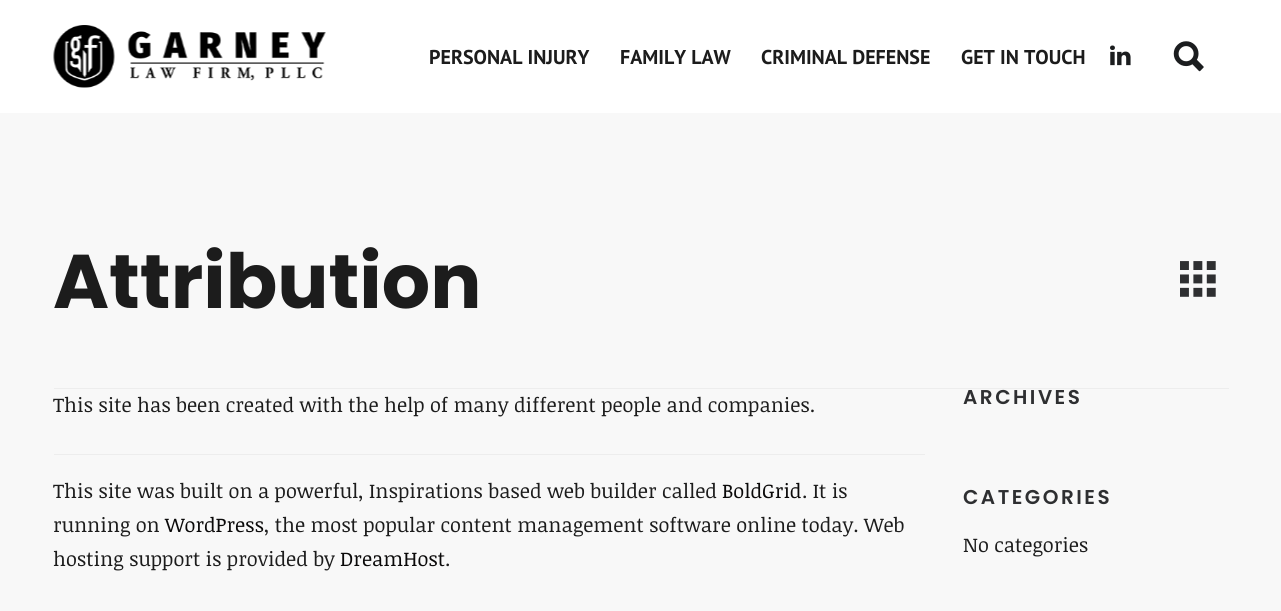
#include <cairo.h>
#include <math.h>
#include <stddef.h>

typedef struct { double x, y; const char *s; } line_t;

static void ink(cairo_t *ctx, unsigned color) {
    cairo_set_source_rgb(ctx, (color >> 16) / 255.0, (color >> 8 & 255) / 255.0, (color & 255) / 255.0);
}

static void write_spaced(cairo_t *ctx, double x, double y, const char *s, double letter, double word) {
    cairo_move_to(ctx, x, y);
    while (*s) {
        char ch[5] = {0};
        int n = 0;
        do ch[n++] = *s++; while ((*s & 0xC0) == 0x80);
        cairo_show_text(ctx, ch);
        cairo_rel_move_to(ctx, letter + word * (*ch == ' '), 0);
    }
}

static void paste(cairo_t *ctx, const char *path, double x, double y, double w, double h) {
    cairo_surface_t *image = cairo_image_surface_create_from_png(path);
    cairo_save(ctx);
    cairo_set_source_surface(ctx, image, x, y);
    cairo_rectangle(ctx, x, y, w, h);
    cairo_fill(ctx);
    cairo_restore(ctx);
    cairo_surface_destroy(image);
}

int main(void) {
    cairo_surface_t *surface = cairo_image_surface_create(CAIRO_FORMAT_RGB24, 1281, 611);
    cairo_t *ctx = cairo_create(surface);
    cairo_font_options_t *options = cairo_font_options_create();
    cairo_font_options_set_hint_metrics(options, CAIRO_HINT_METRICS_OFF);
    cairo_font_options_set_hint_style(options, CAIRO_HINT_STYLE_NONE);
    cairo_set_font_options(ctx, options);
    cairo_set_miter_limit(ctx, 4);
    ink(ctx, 0xF8F8F8);
    cairo_paint(ctx);
    ink(ctx, 0xFFFFFF);
    cairo_rectangle(ctx, 0, 0, 1281, 113);
    cairo_fill(ctx);
    paste(ctx, "media/1.png", 53, 25, 273, 63);
    cairo_select_font_face(ctx, "PT Sans", CAIRO_FONT_SLANT_NORMAL, CAIRO_FONT_WEIGHT_BOLD);
    cairo_set_font_size(ctx, 20);
    ink(ctx, 0x1C1C1C);
    {
        static const line_t items[] = {
            {429, 64, "PERSONAL INJURY"},
            {620, 64, "FAMILY LAW"},
            {761, 64, "CRIMINAL DEFENSE"},
            {961, 64, "GET IN TOUCH"},
        };
        for (size_t i = 0; i < sizeof items / sizeof *items; i++) {
            cairo_move_to(ctx, items[i].x, items[i].y);
            cairo_show_text(ctx, items[i].s);
        }
    }
    paste(ctx, "media/2.png", 1110, 45, 21, 21);
    paste(ctx, "media/3.png", 1173, 41, 31, 31);
    ink(ctx, 0xEDEDED);
    cairo_rectangle(ctx, 54, 388, 1175, 1);
    cairo_fill(ctx);
    cairo_select_font_face(ctx, "Poppins", CAIRO_FONT_SLANT_NORMAL, CAIRO_FONT_WEIGHT_BOLD);
    cairo_set_font_size(ctx, 76);
    ink(ctx, 0x1C1C1C);
    cairo_move_to(ctx, 53, 308);
    cairo_show_text(ctx, "Attribution");
    paste(ctx, "media/4.png", 1180, 261, 36, 36);
    cairo_select_font_face(ctx, "Noticia Text", CAIRO_FONT_SLANT_NORMAL, CAIRO_FONT_WEIGHT_NORMAL);
    cairo_set_font_size(ctx, 20);
    cairo_move_to(ctx, 53, 412);
    cairo_show_text(ctx, "This site has been created with the help of many different people and companies.");
    ink(ctx, 0xEDEDED);
    cairo_rectangle(ctx, 54, 454, 871, 1);
    cairo_fill(ctx);
    ink(ctx, 0x1C1C1C);
    cairo_move_to(ctx, 53, 498);
    cairo_show_text(ctx, "This site was built on a powerful, Inspirations based web builder called");
    ink(ctx, 0x0A0909);
    cairo_move_to(ctx, 722, 498);
    cairo_show_text(ctx, "BoldGrid");
    ink(ctx, 0x1C1C1C);
    cairo_move_to(ctx, 802, 498);
    cairo_show_text(ctx, ". It is");
    cairo_move_to(ctx, 53, 532);
    cairo_show_text(ctx, "running on");
    ink(ctx, 0x0A0909);
    cairo_move_to(ctx, 165, 532);
    cairo_show_text(ctx, "WordPress");
    ink(ctx, 0x1C1C1C);
    cairo_move_to(ctx, 264, 532);
    cairo_show_text(ctx, ", the most popular content management software online today. Web");
    cairo_move_to(ctx, 53, 566);
    cairo_show_text(ctx, "hosting support is provided by");
    ink(ctx, 0x0A0909);
    cairo_move_to(ctx, 340, 566);
    cairo_show_text(ctx, "DreamHost");
    ink(ctx, 0x1C1C1C);
    cairo_move_to(ctx, 445, 566);
    cairo_show_text(ctx, ".");
    cairo_select_font_face(ctx, "Poppins SemiBold", CAIRO_FONT_SLANT_NORMAL, CAIRO_FONT_WEIGHT_NORMAL);
    ink(ctx, 0x2E2F31);
    write_spaced(ctx, 963, 404, "ARCHIVES", 2.5, 0);
    write_spaced(ctx, 963, 504, "CATEGORIES", 2.5, 0);
    cairo_select_font_face(ctx, "Noticia Text", CAIRO_FONT_SLANT_NORMAL, CAIRO_FONT_WEIGHT_NORMAL);
    ink(ctx, 0x1C1C1C);
    cairo_move_to(ctx, 963, 552);
    cairo_show_text(ctx, "No categories");
    cairo_surface_write_to_png(surface, "image.png");
    cairo_font_options_destroy(options);
    cairo_destroy(ctx);
    cairo_surface_destroy(surface);
    return 0;
}
